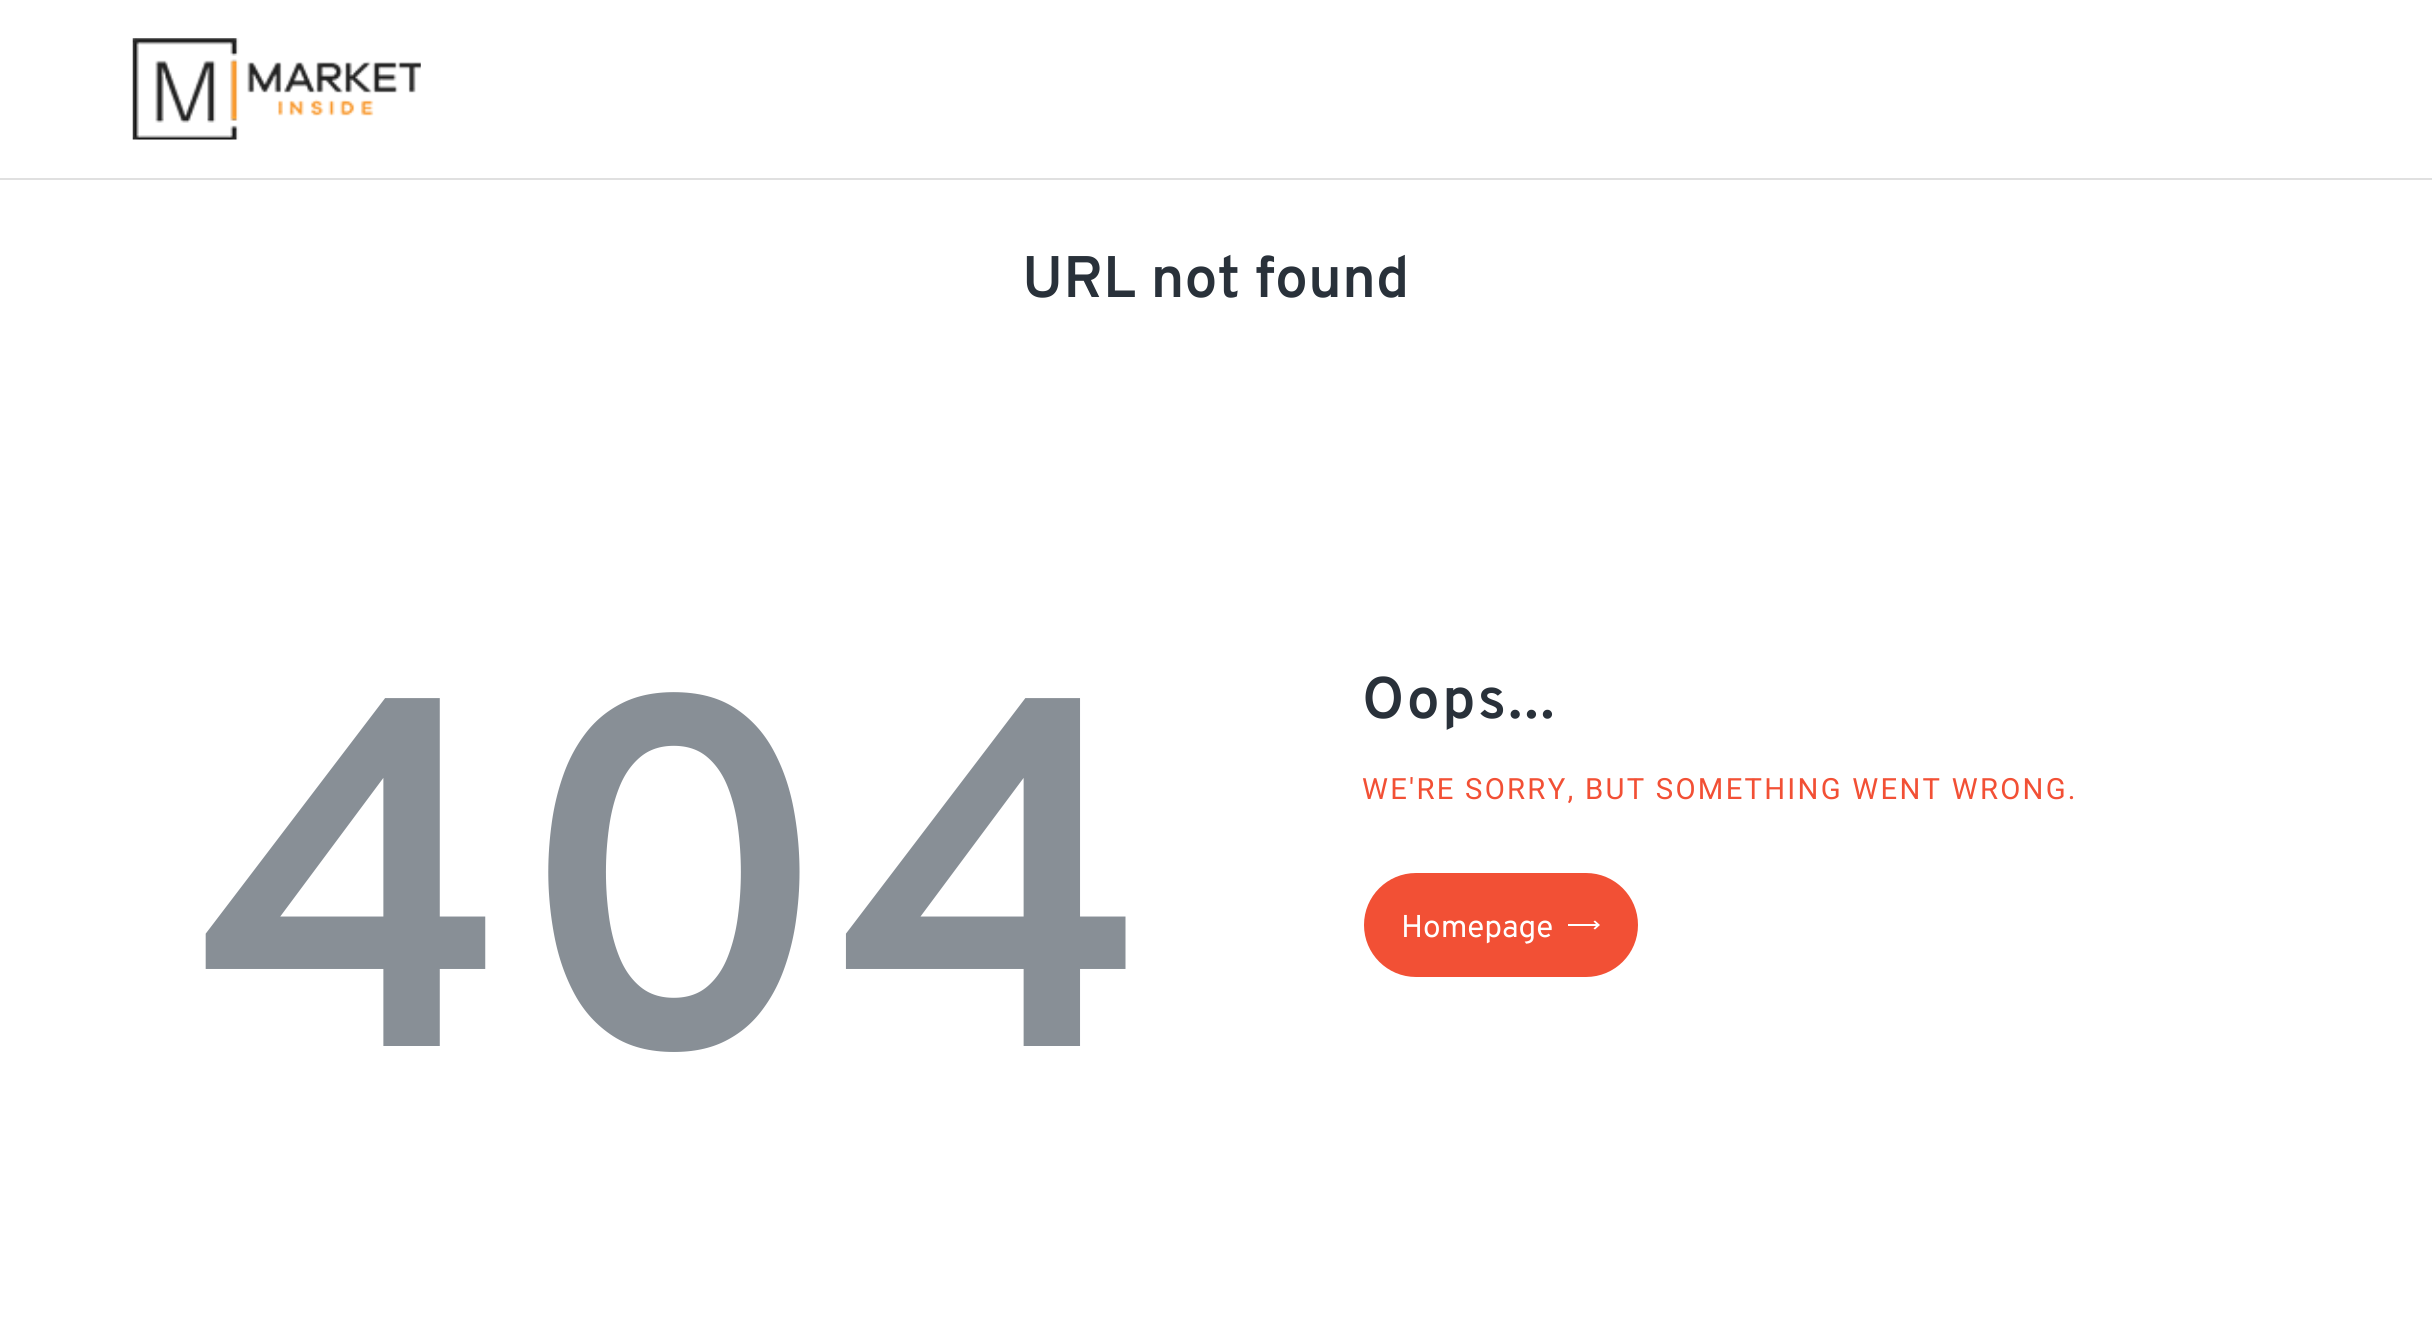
#include <cairo.h>
#include <math.h>
#include <stddef.h>


static void ink(cairo_t *ctx, unsigned color) {
    cairo_set_source_rgb(ctx, (color >> 16) / 255.0, (color >> 8 & 255) / 255.0, (color & 255) / 255.0);
}

static void write_spaced(cairo_t *ctx, double x, double y, const char *s, double letter, double word) {
    cairo_move_to(ctx, x, y);
    while (*s) {
        char ch[5] = {0};
        int n = 0;
        do ch[n++] = *s++; while ((*s & 0xC0) == 0x80);
        cairo_show_text(ctx, ch);
        cairo_rel_move_to(ctx, letter + word * (*ch == ' '), 0);
    }
}

static void round_path(cairo_t *ctx, double x, double y, double w, double h, double r) {
    cairo_new_sub_path(ctx);
    cairo_arc(ctx, x + w - r, y + h - r, r, 0, M_PI / 2);
    cairo_arc(ctx, x + r, y + h - r, r, M_PI / 2, M_PI);
    cairo_arc(ctx, x + r, y + r, r, M_PI, 1.5 * M_PI);
    cairo_arc(ctx, x + w - r, y + r, r, 1.5 * M_PI, 2 * M_PI);
    cairo_close_path(ctx);
}

static void paste(cairo_t *ctx, const char *path, double x, double y, double w, double h) {
    cairo_surface_t *image = cairo_image_surface_create_from_png(path);
    cairo_save(ctx);
    cairo_set_source_surface(ctx, image, x, y);
    cairo_rectangle(ctx, x, y, w, h);
    cairo_fill(ctx);
    cairo_restore(ctx);
    cairo_surface_destroy(image);
}

int main(void) {
    cairo_surface_t *surface = cairo_image_surface_create(CAIRO_FORMAT_RGB24, 2432, 1323);
    cairo_t *ctx = cairo_create(surface);
    cairo_font_options_t *options = cairo_font_options_create();
    cairo_font_options_set_hint_metrics(options, CAIRO_HINT_METRICS_OFF);
    cairo_font_options_set_hint_style(options, CAIRO_HINT_STYLE_NONE);
    cairo_set_font_options(ctx, options);
    cairo_set_miter_limit(ctx, 4);
    ink(ctx, 0xFFFFFF);
    cairo_paint(ctx);
    ink(ctx, 0xE0E0E0);
    cairo_rectangle(ctx, 0, 178, 2432, 2);
    cairo_fill(ctx);
    paste(ctx, "media/1.png", 132, 38, 289, 102);
    cairo_select_font_face(ctx, "Overpass SemiBold", CAIRO_FONT_SLANT_NORMAL, CAIRO_FONT_WEIGHT_NORMAL);
    cairo_set_font_size(ctx, 58.5);
    ink(ctx, 0x29313A);
    cairo_move_to(ctx, 1022, 297);
    cairo_show_text(ctx, "URL not found");
    cairo_set_font_size(ctx, 497);
    ink(ctx, 0x888F96);
    cairo_move_to(ctx, 196, 1046);
    cairo_show_text(ctx, "404");
    cairo_set_font_size(ctx, 58.5);
    ink(ctx, 0x29313A);
    write_spaced(ctx, 1362, 718, "Oops...", 2.25, 0);
    cairo_select_font_face(ctx, "Roboto", CAIRO_FONT_SLANT_NORMAL, CAIRO_FONT_WEIGHT_NORMAL);
    cairo_set_font_size(ctx, 29.25);
    ink(ctx, 0xF25035);
    write_spaced(ctx, 1362, 799, "WE'RE SORRY, BUT SOMETHING WENT WRONG.", 2.25, 0);
    round_path(ctx, 1364, 873, 274, 104, 52);
    cairo_fill(ctx);
    cairo_select_font_face(ctx, "Overpass", CAIRO_FONT_SLANT_NORMAL, CAIRO_FONT_WEIGHT_NORMAL);
    cairo_set_font_size(ctx, 31.5);
    ink(ctx, 0xFFFFFF);
    cairo_move_to(ctx, 1401, 937);
    cairo_show_text(ctx, "Homepage");
    cairo_new_path(ctx);
    cairo_move_to(ctx, 1595, 920.5);
    cairo_line_to(ctx, 1593.5, 921.5);
    cairo_line_to(ctx, 1596, 924);
    cairo_line_to(ctx, 1568, 924);
    cairo_line_to(ctx, 1568, 926);
    cairo_line_to(ctx, 1596, 926);
    cairo_line_to(ctx, 1593.5, 928.5);
    cairo_line_to(ctx, 1595, 929.5);
    cairo_line_to(ctx, 1600, 925);
    cairo_close_path(ctx);
    cairo_fill(ctx);
    cairo_surface_write_to_png(surface, "image.png");
    cairo_font_options_destroy(options);
    cairo_destroy(ctx);
    cairo_surface_destroy(surface);
    return 0;
}
